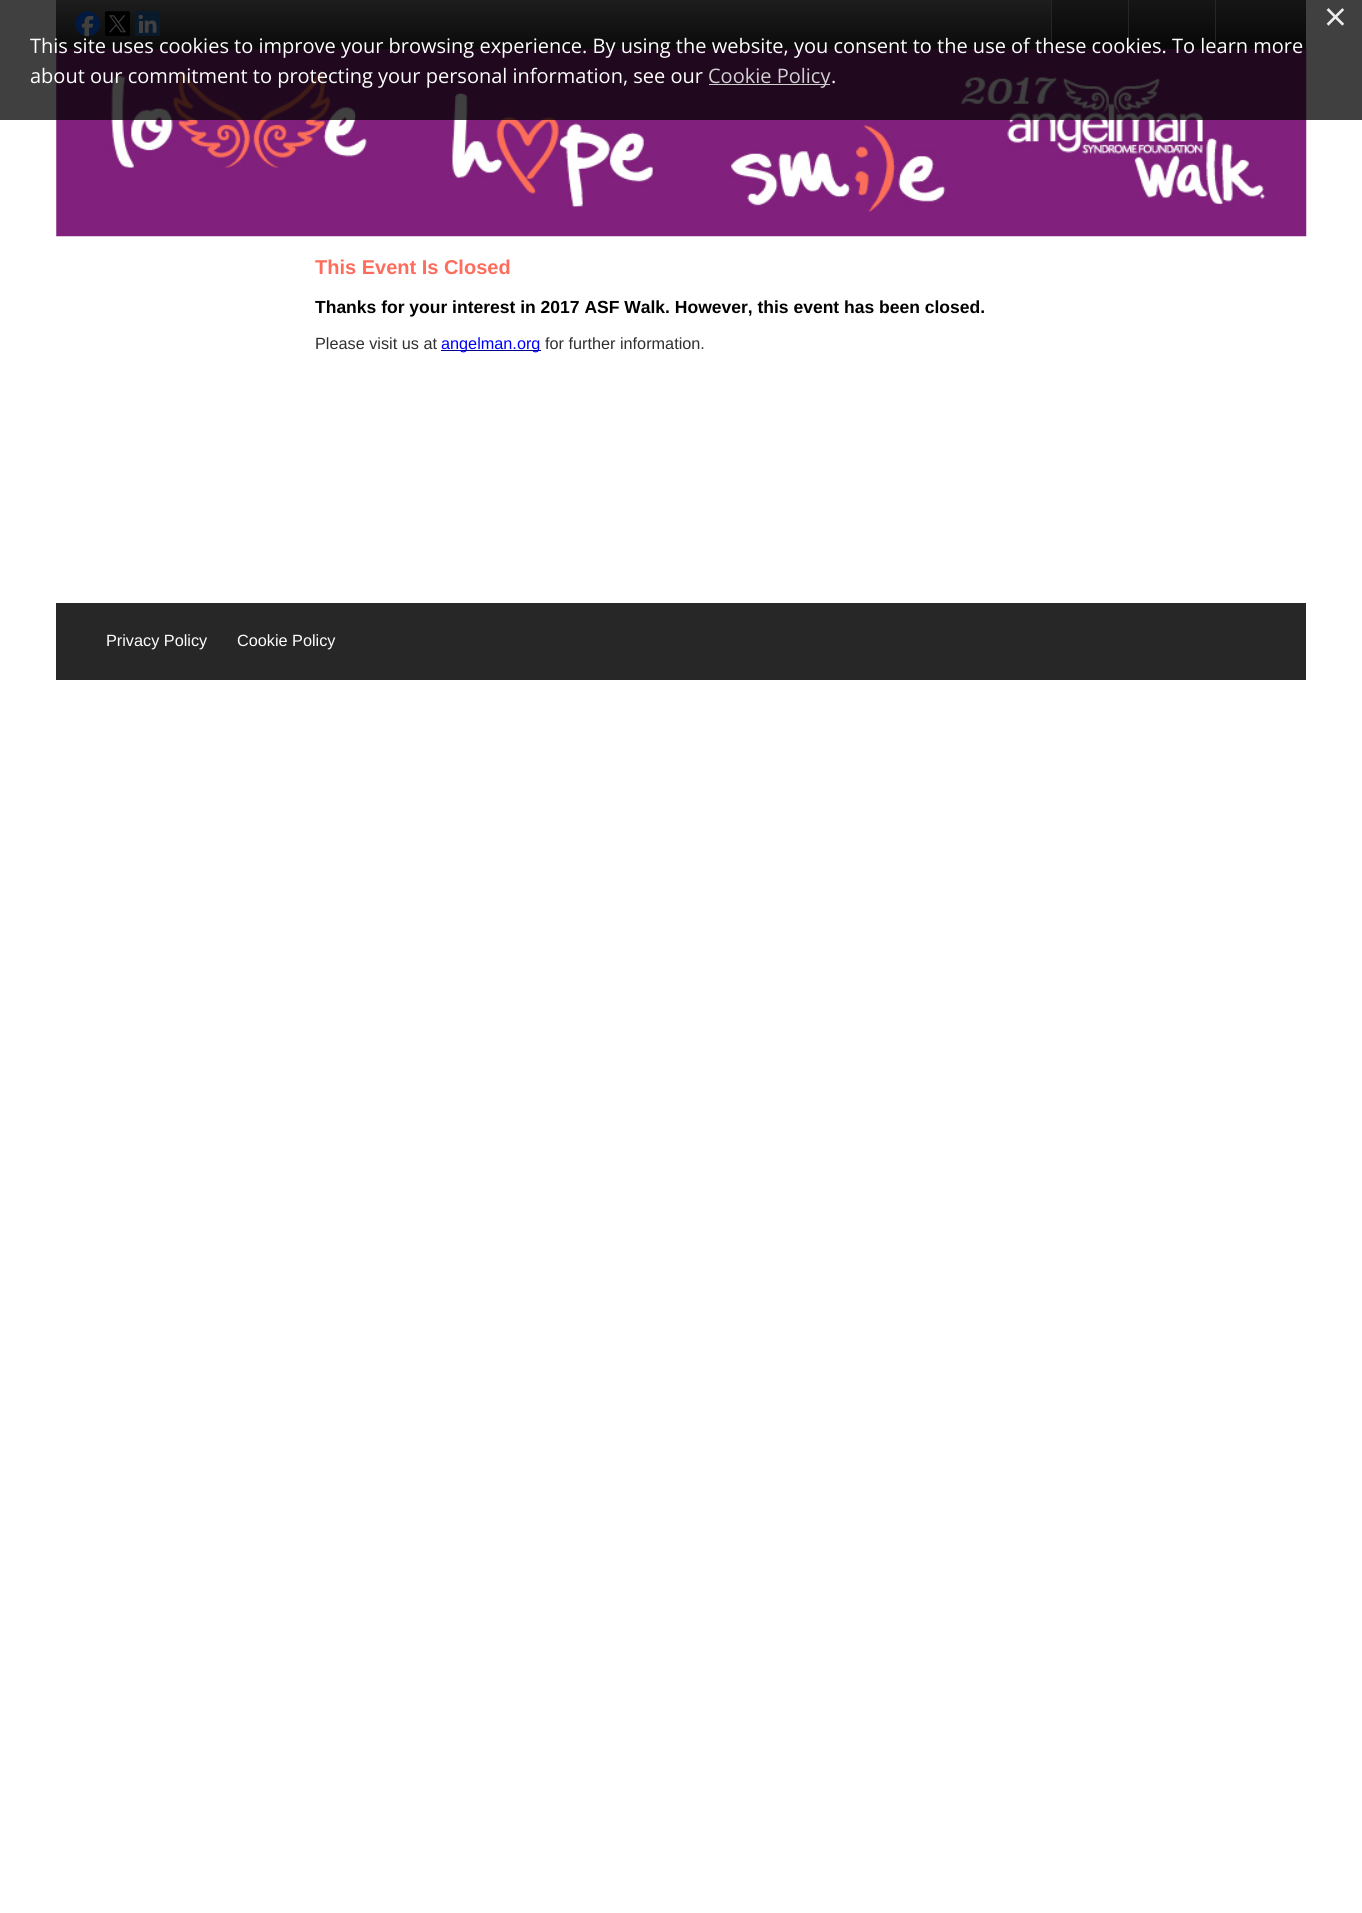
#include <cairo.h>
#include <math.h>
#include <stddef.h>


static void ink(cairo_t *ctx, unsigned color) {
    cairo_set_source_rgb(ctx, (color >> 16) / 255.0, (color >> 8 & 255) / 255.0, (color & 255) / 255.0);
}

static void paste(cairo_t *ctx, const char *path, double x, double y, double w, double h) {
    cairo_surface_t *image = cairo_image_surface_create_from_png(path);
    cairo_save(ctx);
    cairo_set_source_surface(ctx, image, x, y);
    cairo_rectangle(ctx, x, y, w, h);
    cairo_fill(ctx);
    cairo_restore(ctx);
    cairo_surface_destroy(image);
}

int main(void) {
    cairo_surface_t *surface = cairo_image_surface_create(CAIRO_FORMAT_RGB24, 1362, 1913);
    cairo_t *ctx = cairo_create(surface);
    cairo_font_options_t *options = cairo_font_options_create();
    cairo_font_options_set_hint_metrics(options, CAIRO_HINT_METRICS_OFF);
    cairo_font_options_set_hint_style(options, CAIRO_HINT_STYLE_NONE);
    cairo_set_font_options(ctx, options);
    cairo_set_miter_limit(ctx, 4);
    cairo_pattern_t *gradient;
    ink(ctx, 0xFFFFFF);
    cairo_paint(ctx);
    paste(ctx, "media/4.png", 56, 48, 1251, 189);
    gradient = cairo_pattern_create_linear(681, 0, 681, 49);
    cairo_pattern_add_color_stop_rgba(gradient, 0, 0.451, 0.451, 0.451, 1);
    cairo_pattern_add_color_stop_rgba(gradient, 1, 0.165, 0.165, 0.165, 1);
    cairo_set_source(ctx, gradient);
    cairo_pattern_destroy(gradient);
    cairo_rectangle(ctx, 56, 0, 995, 49);
    cairo_fill(ctx);
    paste(ctx, "media/1.png", 75, 11, 25, 25);
    paste(ctx, "media/2.png", 105, 11, 25, 25);
    paste(ctx, "media/3.png", 135, 11, 25, 25);
    gradient = cairo_pattern_create_linear(1090, 0, 1090, 49);
    cairo_pattern_add_color_stop_rgba(gradient, 0, 0.337, 0.337, 0.337, 1);
    cairo_pattern_add_color_stop_rgba(gradient, 1, 0.11, 0.11, 0.11, 1);
    cairo_set_source(ctx, gradient);
    cairo_pattern_destroy(gradient);
    cairo_rectangle(ctx, 1052, 0, 76, 49);
    cairo_fill(ctx);
    ink(ctx, 0x969696);
    cairo_rectangle(ctx, 1051, 0, 1, 49);
    cairo_fill(ctx);
    gradient = cairo_pattern_create_linear(1172, 0, 1172, 49);
    cairo_pattern_add_color_stop_rgba(gradient, 0, 0.337, 0.337, 0.337, 1);
    cairo_pattern_add_color_stop_rgba(gradient, 1, 0.11, 0.11, 0.11, 1);
    cairo_set_source(ctx, gradient);
    cairo_pattern_destroy(gradient);
    cairo_rectangle(ctx, 1129, 0, 86, 49);
    cairo_fill(ctx);
    ink(ctx, 0x969696);
    cairo_rectangle(ctx, 1128, 0, 1, 49);
    cairo_fill(ctx);
    gradient = cairo_pattern_create_linear(1261, 0, 1261, 49);
    cairo_pattern_add_color_stop_rgba(gradient, 0, 0.337, 0.337, 0.337, 1);
    cairo_pattern_add_color_stop_rgba(gradient, 1, 0.11, 0.11, 0.11, 1);
    cairo_set_source(ctx, gradient);
    cairo_pattern_destroy(gradient);
    cairo_rectangle(ctx, 1216, 0, 90, 49);
    cairo_fill(ctx);
    ink(ctx, 0x969696);
    cairo_rectangle(ctx, 1215, 0, 1, 49);
    cairo_fill(ctx);
    cairo_set_source_rgba(ctx, 0, 0, 0, 0.75);
    cairo_rectangle(ctx, 0, 0, 1362, 120);
    cairo_fill(ctx);
    cairo_select_font_face(ctx, "Open Sans", CAIRO_FONT_SLANT_NORMAL, CAIRO_FONT_WEIGHT_NORMAL);
    cairo_set_font_size(ctx, 40);
    ink(ctx, 0xECECEC);
    cairo_move_to(ctx, 1324, 31);
    cairo_show_text(ctx, "×");
    cairo_set_font_size(ctx, 20);
    ink(ctx, 0xFFFFFF);
    cairo_move_to(ctx, 30, 53);
    cairo_show_text(ctx, "This site uses cookies to improve your browsing experience. By using the website, you consent to the use of these cookies. To learn more");
    cairo_move_to(ctx, 30, 83);
    cairo_show_text(ctx, "about our commitment to protecting your personal information, see our");
    ink(ctx, 0xD2CED2);
    cairo_rectangle(ctx, 709, 84, 121, 1);
    cairo_fill(ctx);
    cairo_move_to(ctx, 708, 83);
    cairo_show_text(ctx, "Cookie Policy");
    ink(ctx, 0xFFFFFF);
    cairo_move_to(ctx, 831, 83);
    cairo_show_text(ctx, ".");
    cairo_select_font_face(ctx, "Liberation Sans", CAIRO_FONT_SLANT_NORMAL, CAIRO_FONT_WEIGHT_BOLD);
    ink(ctx, 0xFE6C5C);
    cairo_move_to(ctx, 315, 274);
    cairo_show_text(ctx, "This Event Is Closed");
    cairo_set_font_size(ctx, 17.5);
    ink(ctx, 0x000000);
    cairo_move_to(ctx, 315, 313);
    cairo_show_text(ctx, "Thanks for your interest in 2017 ASF Walk. However, this event has been closed.");
    cairo_select_font_face(ctx, "Liberation Sans", CAIRO_FONT_SLANT_NORMAL, CAIRO_FONT_WEIGHT_NORMAL);
    cairo_set_font_size(ctx, 16.25);
    ink(ctx, 0x302F30);
    cairo_move_to(ctx, 315, 349);
    cairo_show_text(ctx, "Please visit us at");
    ink(ctx, 0x00008B);
    cairo_rectangle(ctx, 441, 350, 100, 1);
    cairo_fill(ctx);
    ink(ctx, 0x0000FF);
    cairo_move_to(ctx, 441, 349);
    cairo_show_text(ctx, "angelman.org");
    ink(ctx, 0x302F30);
    cairo_move_to(ctx, 545, 349);
    cairo_show_text(ctx, "for further information.");
    ink(ctx, 0x272727);
    cairo_rectangle(ctx, 56, 603, 1250, 77);
    cairo_fill(ctx);
    ink(ctx, 0xFFFFFF);
    cairo_move_to(ctx, 106, 646);
    cairo_show_text(ctx, "Privacy Policy");
    cairo_move_to(ctx, 237, 646);
    cairo_show_text(ctx, "Cookie Policy");
    cairo_surface_write_to_png(surface, "image.png");
    cairo_font_options_destroy(options);
    cairo_destroy(ctx);
    cairo_surface_destroy(surface);
    return 0;
}
